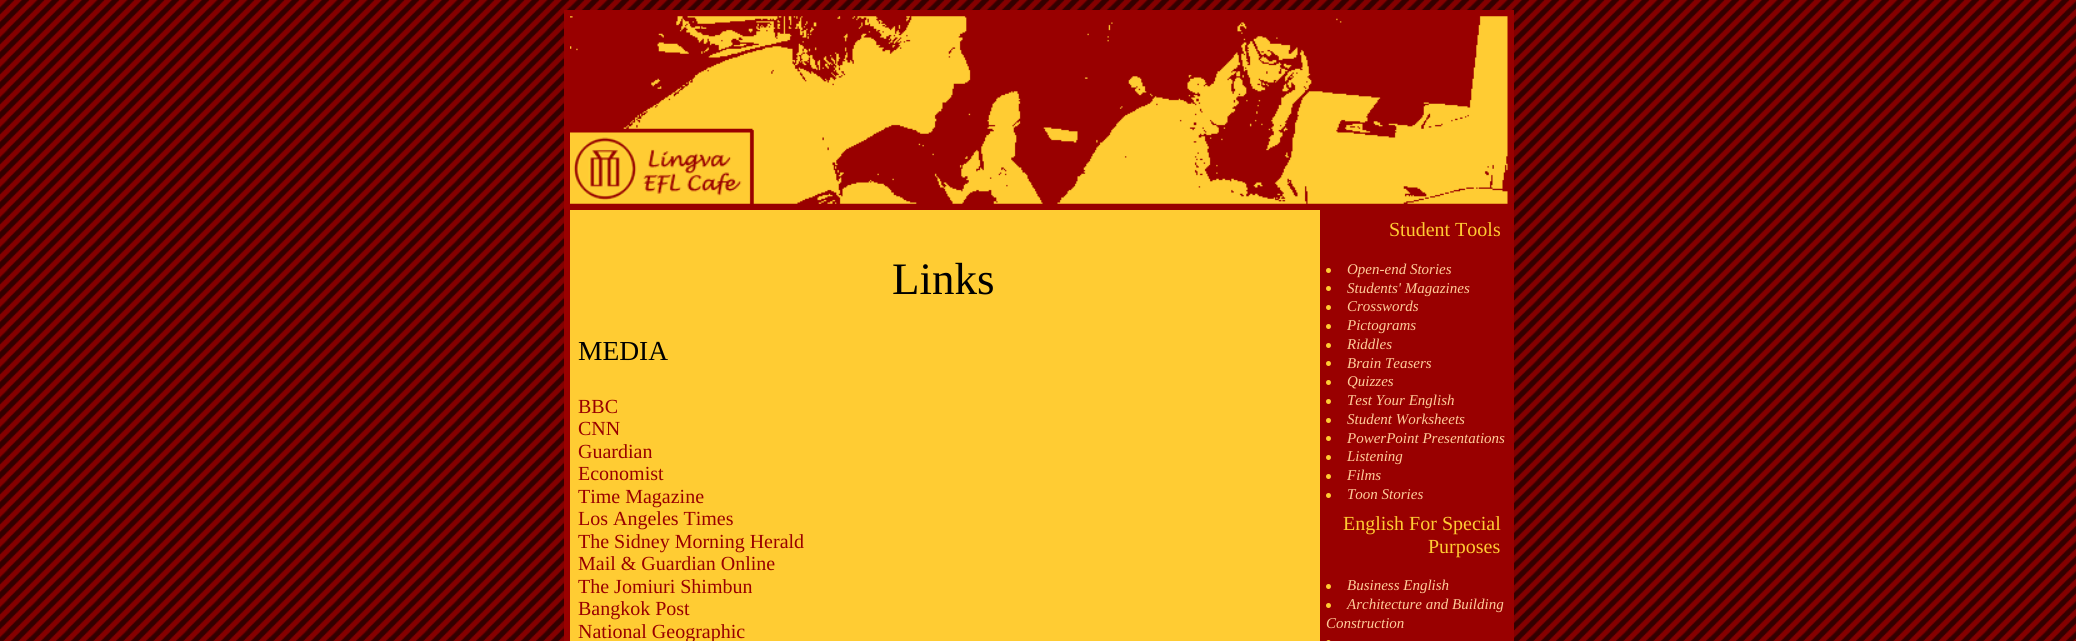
#include <cairo.h>
#include <math.h>
#include <stddef.h>

typedef struct { double x, y; const char *s; } line_t;

static void ink(cairo_t *ctx, unsigned color) {
    cairo_set_source_rgb(ctx, (color >> 16) / 255.0, (color >> 8 & 255) / 255.0, (color & 255) / 255.0);
}

static void round_path(cairo_t *ctx, double x, double y, double w, double h, double r) {
    cairo_new_sub_path(ctx);
    cairo_arc(ctx, x + w - r, y + h - r, r, 0, M_PI / 2);
    cairo_arc(ctx, x + r, y + h - r, r, M_PI / 2, M_PI);
    cairo_arc(ctx, x + r, y + r, r, M_PI, 1.5 * M_PI);
    cairo_arc(ctx, x + w - r, y + r, r, 1.5 * M_PI, 2 * M_PI);
    cairo_close_path(ctx);
}

static void paste(cairo_t *ctx, const char *path, double x, double y, double w, double h) {
    cairo_surface_t *image = cairo_image_surface_create_from_png(path);
    cairo_save(ctx);
    cairo_set_source_surface(ctx, image, x, y);
    cairo_rectangle(ctx, x, y, w, h);
    cairo_fill(ctx);
    cairo_restore(ctx);
    cairo_surface_destroy(image);
}

int main(void) {
    cairo_surface_t *surface = cairo_image_surface_create(CAIRO_FORMAT_RGB24, 2076, 641);
    cairo_t *ctx = cairo_create(surface);
    cairo_font_options_t *options = cairo_font_options_create();
    cairo_font_options_set_hint_metrics(options, CAIRO_HINT_METRICS_OFF);
    cairo_font_options_set_hint_style(options, CAIRO_HINT_STYLE_NONE);
    cairo_set_font_options(ctx, options);
    cairo_set_miter_limit(ctx, 4);
    ink(ctx, 0xFFFFFF);
    cairo_paint(ctx);
    paste(ctx, "media/1.png", 0, 0, 2076, 641);
    ink(ctx, 0xFFCC33);
    cairo_rectangle(ctx, 570, 210, 750, 431);
    cairo_fill(ctx);
    cairo_rectangle(ctx, 567, 13, 944, 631);
    ink(ctx, 0x990000);
    cairo_set_line_width(ctx, 6);
    cairo_stroke(ctx);
    cairo_rectangle(ctx, 570, 16, 938, 194);
    cairo_fill(ctx);
    paste(ctx, "media/2.png", 570, 16, 938, 188);
    cairo_select_font_face(ctx, "Liberation Serif", CAIRO_FONT_SLANT_NORMAL, CAIRO_FONT_WEIGHT_NORMAL);
    cairo_set_font_size(ctx, 45);
    ink(ctx, 0x000000);
    cairo_move_to(ctx, 892, 294);
    cairo_show_text(ctx, "Links");
    cairo_set_font_size(ctx, 27.5);
    cairo_move_to(ctx, 578, 360);
    cairo_show_text(ctx, "MEDIA");
    cairo_set_font_size(ctx, 20);
    ink(ctx, 0x990000);
    {
        static const line_t items[] = {
            {578, 413, "BBC"},
            {578, 435, "CNN"},
            {578, 458, "Guardian"},
            {578, 480, "Economist"},
            {578, 503, "Time Magazine"},
            {578, 525, "Los Angeles Times"},
            {578, 548, "The Sidney Morning Herald"},
            {578, 570, "Mail & Guardian Online"},
            {578, 593, "The Jomiuri Shimbun"},
            {578, 615, "Bangkok Post"},
            {578, 638, "National Geographic"},
        };
        for (size_t i = 0; i < sizeof items / sizeof *items; i++) {
            cairo_move_to(ctx, items[i].x, items[i].y);
            cairo_show_text(ctx, items[i].s);
        }
    }
    cairo_rectangle(ctx, 1320, 210, 188, 431);
    cairo_fill(ctx);
    ink(ctx, 0xFFCC33);
    cairo_move_to(ctx, 1389, 236);
    cairo_show_text(ctx, "Student Tools");
    cairo_new_path(ctx);
    cairo_arc(ctx, 1328.5, 270.5, 2.5, 0, 2 * M_PI);
    cairo_fill(ctx);
    cairo_select_font_face(ctx, "Liberation Serif", CAIRO_FONT_SLANT_ITALIC, CAIRO_FONT_WEIGHT_NORMAL);
    cairo_set_font_size(ctx, 15);
    ink(ctx, 0xFFCC99);
    cairo_move_to(ctx, 1347, 274);
    cairo_show_text(ctx, "Open-end Stories");
    ink(ctx, 0xFFCC33);
    cairo_new_path(ctx);
    cairo_arc(ctx, 1328.5, 288.5, 2.5, 0, 2 * M_PI);
    cairo_fill(ctx);
    ink(ctx, 0xFFCC99);
    cairo_move_to(ctx, 1347, 293);
    cairo_show_text(ctx, "Students' Magazines");
    ink(ctx, 0xFFCC33);
    cairo_new_path(ctx);
    cairo_arc(ctx, 1328.5, 307.5, 2.5, 0, 2 * M_PI);
    cairo_fill(ctx);
    ink(ctx, 0xFFCC99);
    cairo_move_to(ctx, 1347, 311);
    cairo_show_text(ctx, "Crosswords");
    ink(ctx, 0xFFCC33);
    cairo_new_path(ctx);
    cairo_arc(ctx, 1328.5, 326.5, 2.5, 0, 2 * M_PI);
    cairo_fill(ctx);
    ink(ctx, 0xFFCC99);
    cairo_move_to(ctx, 1347, 330);
    cairo_show_text(ctx, "Pictograms");
    ink(ctx, 0xFFCC33);
    cairo_new_path(ctx);
    cairo_arc(ctx, 1328.5, 345.5, 2.5, 0, 2 * M_PI);
    cairo_fill(ctx);
    ink(ctx, 0xFFCC99);
    cairo_move_to(ctx, 1347, 349);
    cairo_show_text(ctx, "Riddles");
    ink(ctx, 0xFFCC33);
    cairo_new_path(ctx);
    cairo_arc(ctx, 1328.5, 363.5, 2.5, 0, 2 * M_PI);
    cairo_fill(ctx);
    ink(ctx, 0xFFCC99);
    cairo_move_to(ctx, 1347, 368);
    cairo_show_text(ctx, "Brain Teasers");
    ink(ctx, 0xFFCC33);
    cairo_new_path(ctx);
    cairo_arc(ctx, 1328.5, 382.5, 2.5, 0, 2 * M_PI);
    cairo_fill(ctx);
    ink(ctx, 0xFFCC99);
    cairo_move_to(ctx, 1347, 386);
    cairo_show_text(ctx, "Quizzes");
    ink(ctx, 0xFFCC33);
    cairo_new_path(ctx);
    cairo_arc(ctx, 1328.5, 401.5, 2.5, 0, 2 * M_PI);
    cairo_fill(ctx);
    ink(ctx, 0xFFCC99);
    cairo_move_to(ctx, 1347, 405);
    cairo_show_text(ctx, "Test Your English");
    ink(ctx, 0xFFCC33);
    cairo_new_path(ctx);
    cairo_arc(ctx, 1328.5, 420.5, 2.5, 0, 2 * M_PI);
    cairo_fill(ctx);
    ink(ctx, 0xFFCC99);
    cairo_move_to(ctx, 1347, 424);
    cairo_show_text(ctx, "Student Worksheets");
    ink(ctx, 0xFFCC33);
    cairo_new_path(ctx);
    cairo_arc(ctx, 1328.5, 438.5, 2.5, 0, 2 * M_PI);
    cairo_fill(ctx);
    ink(ctx, 0xFFCC99);
    cairo_move_to(ctx, 1347, 443);
    cairo_show_text(ctx, "PowerPoint Presentations");
    ink(ctx, 0xFFCC33);
    cairo_new_path(ctx);
    cairo_arc(ctx, 1328.5, 457.5, 2.5, 0, 2 * M_PI);
    cairo_fill(ctx);
    ink(ctx, 0xFFCC99);
    cairo_move_to(ctx, 1347, 461);
    cairo_show_text(ctx, "Listening");
    ink(ctx, 0xFFCC33);
    cairo_new_path(ctx);
    cairo_arc(ctx, 1328.5, 476.5, 2.5, 0, 2 * M_PI);
    cairo_fill(ctx);
    ink(ctx, 0xFFCC99);
    cairo_move_to(ctx, 1347, 480);
    cairo_show_text(ctx, "Films");
    ink(ctx, 0xFFCC33);
    cairo_new_path(ctx);
    cairo_arc(ctx, 1328.5, 495.5, 2.5, 0, 2 * M_PI);
    cairo_fill(ctx);
    ink(ctx, 0xFFCC99);
    cairo_move_to(ctx, 1347, 499);
    cairo_show_text(ctx, "Toon Stories");
    cairo_select_font_face(ctx, "Liberation Serif", CAIRO_FONT_SLANT_NORMAL, CAIRO_FONT_WEIGHT_NORMAL);
    cairo_set_font_size(ctx, 20);
    ink(ctx, 0xFFCC33);
    cairo_move_to(ctx, 1343, 530);
    cairo_show_text(ctx, "English For Special");
    cairo_move_to(ctx, 1428, 553);
    cairo_show_text(ctx, "Purposes");
    cairo_new_path(ctx);
    cairo_arc(ctx, 1328.5, 586.5, 2.5, 0, 2 * M_PI);
    cairo_fill(ctx);
    cairo_select_font_face(ctx, "Liberation Serif", CAIRO_FONT_SLANT_ITALIC, CAIRO_FONT_WEIGHT_NORMAL);
    cairo_set_font_size(ctx, 15);
    ink(ctx, 0xFFCC99);
    cairo_move_to(ctx, 1347, 590);
    cairo_show_text(ctx, "Business English");
    ink(ctx, 0xFFCC33);
    cairo_new_path(ctx);
    cairo_arc(ctx, 1328.5, 605.5, 2.5, 0, 2 * M_PI);
    cairo_fill(ctx);
    ink(ctx, 0xFFCC99);
    cairo_move_to(ctx, 1347, 609);
    cairo_show_text(ctx, "Architecture and Building");
    cairo_move_to(ctx, 1326, 628);
    cairo_show_text(ctx, "Construction");
    ink(ctx, 0xFFCC33);
    round_path(ctx, 1326, 640, 5, 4, 2.5);
    cairo_fill(ctx);
    cairo_surface_write_to_png(surface, "image.png");
    cairo_font_options_destroy(options);
    cairo_destroy(ctx);
    cairo_surface_destroy(surface);
    return 0;
}
